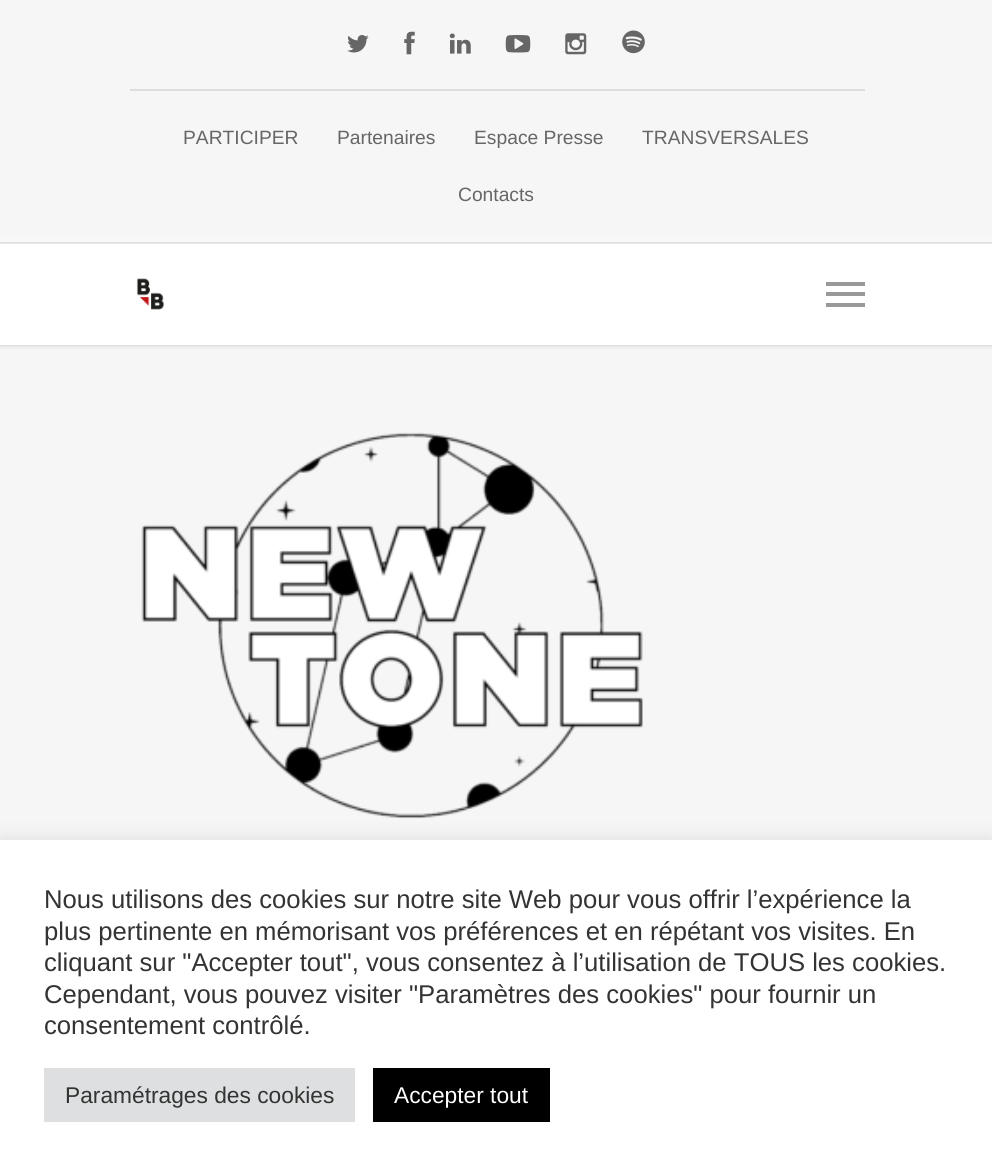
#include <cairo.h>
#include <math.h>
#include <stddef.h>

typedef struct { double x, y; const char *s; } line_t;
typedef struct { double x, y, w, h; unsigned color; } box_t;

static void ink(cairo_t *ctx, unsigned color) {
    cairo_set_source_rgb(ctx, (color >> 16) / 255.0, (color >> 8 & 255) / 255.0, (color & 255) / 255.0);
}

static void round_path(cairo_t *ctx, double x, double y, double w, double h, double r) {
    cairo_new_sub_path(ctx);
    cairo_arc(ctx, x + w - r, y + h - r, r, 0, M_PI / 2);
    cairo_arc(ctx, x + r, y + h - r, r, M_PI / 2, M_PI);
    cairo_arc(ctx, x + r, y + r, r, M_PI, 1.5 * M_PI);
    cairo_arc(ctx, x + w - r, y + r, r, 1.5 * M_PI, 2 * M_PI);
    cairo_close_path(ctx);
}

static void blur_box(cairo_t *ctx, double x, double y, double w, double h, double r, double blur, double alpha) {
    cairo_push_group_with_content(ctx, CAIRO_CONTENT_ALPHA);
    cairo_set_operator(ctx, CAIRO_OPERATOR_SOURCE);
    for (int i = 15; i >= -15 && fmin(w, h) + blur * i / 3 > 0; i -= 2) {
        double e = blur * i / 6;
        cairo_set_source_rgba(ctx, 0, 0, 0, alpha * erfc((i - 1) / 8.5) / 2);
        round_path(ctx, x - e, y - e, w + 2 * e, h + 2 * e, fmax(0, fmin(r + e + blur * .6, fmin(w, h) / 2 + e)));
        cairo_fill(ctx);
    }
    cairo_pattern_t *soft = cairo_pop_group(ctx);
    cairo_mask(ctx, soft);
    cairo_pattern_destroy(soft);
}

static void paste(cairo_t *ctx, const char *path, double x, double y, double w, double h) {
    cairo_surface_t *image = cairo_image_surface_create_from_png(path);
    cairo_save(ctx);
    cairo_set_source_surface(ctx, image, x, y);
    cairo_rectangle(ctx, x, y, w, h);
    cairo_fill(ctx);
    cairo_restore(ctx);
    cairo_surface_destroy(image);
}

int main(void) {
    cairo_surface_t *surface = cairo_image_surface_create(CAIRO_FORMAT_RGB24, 992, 1174);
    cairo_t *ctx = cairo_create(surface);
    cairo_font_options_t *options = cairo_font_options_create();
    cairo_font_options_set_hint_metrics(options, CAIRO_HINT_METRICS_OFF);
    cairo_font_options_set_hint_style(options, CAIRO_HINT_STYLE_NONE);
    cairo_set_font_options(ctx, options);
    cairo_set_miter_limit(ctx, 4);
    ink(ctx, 0xF6F6F6);
    cairo_paint(ctx);
    ink(ctx, 0x000000);
    blur_box(ctx, 0, 243, 992, 102, 0, 2.5, 0.22);
    ink(ctx, 0xF8F8F8);
    cairo_rectangle(ctx, 0, 237, 992, 6);
    cairo_fill(ctx);
    ink(ctx, 0xFFFFFF);
    cairo_rectangle(ctx, 0, 243, 992, 102);
    cairo_fill(ctx);
    cairo_set_source_rgba(ctx, 0, 0, 0, 0.1);
    cairo_rectangle(ctx, 0, 242, 992, 2);
    cairo_fill(ctx);
    paste(ctx, "media/1.png", 347, 35, 22, 18);
    paste(ctx, "media/2.png", 404, 31, 11, 24);
    paste(ctx, "media/3.png", 449, 33, 22, 21);
    paste(ctx, "media/4.png", 505, 35, 26, 18);
    paste(ctx, "media/5.png", 565, 33, 22, 22);
    paste(ctx, "media/6.png", 622, 30, 23, 24);
    ink(ctx, 0xDDDDDD);
    cairo_rectangle(ctx, 130, 89, 735, 2);
    cairo_fill(ctx);
    cairo_select_font_face(ctx, "Liberation Sans", CAIRO_FONT_SLANT_NORMAL, CAIRO_FONT_WEIGHT_NORMAL);
    cairo_set_font_size(ctx, 19.25);
    ink(ctx, 0x666666);
    {
        static const line_t items[] = {
            {183, 144, "PARTICIPER"},
            {337, 144, "Partenaires"},
            {474, 144, "Espace Presse"},
            {642, 144, "TRANSVERSALES"},
            {458, 201, "Contacts"},
        };
        for (size_t i = 0; i < sizeof items / sizeof *items; i++) {
            cairo_move_to(ctx, items[i].x, items[i].y);
            cairo_show_text(ctx, items[i].s);
        }
    }
    paste(ctx, "media/7.png", 136, 278, 29, 32);
    {
        static const box_t items[] = {
            {826, 282, 39, 4, 0x999999},
            {826, 303, 39, 4, 0x999999},
            {826, 292, 39, 4, 0x999999},
        };
        for (size_t i = 0; i < sizeof items / sizeof *items; i++) {
            ink(ctx, items[i].color);
            cairo_rectangle(ctx, items[i].x, items[i].y, items[i].w, items[i].h);
            cairo_fill(ctx);
        }
    }
    paste(ctx, "media/8.png", 141, 432, 502, 387);
    ink(ctx, 0xACABAB);
    blur_box(ctx, 0, 838, 992, 335, 0, 9, 0.3);
    ink(ctx, 0xFFFFFF);
    cairo_rectangle(ctx, 0, 840, 992, 334);
    cairo_fill(ctx);
    cairo_set_font_size(ctx, 25.65);
    ink(ctx, 0x333333);
    {
        static const line_t items[] = {
            {44, 908, "Nous utilisons des cookies sur notre site Web pour vous offrir l’expérience la"},
            {44, 940, "plus pertinente en mémorisant vos préférences et en répétant vos visites. En"},
            {44, 971, "cliquant sur \"Accepter tout\", vous consentez à l’utilisation de TOUS les cookies."},
            {44, 1003, "Cependant, vous pouvez visiter \"Paramètres des cookies\" pour fournir un"},
            {44, 1034, "consentement contrôlé."},
        };
        for (size_t i = 0; i < sizeof items / sizeof *items; i++) {
            cairo_move_to(ctx, items[i].x, items[i].y);
            cairo_show_text(ctx, items[i].s);
        }
    }
    ink(ctx, 0xDEDFE0);
    cairo_rectangle(ctx, 44, 1068, 311, 54);
    cairo_fill(ctx);
    cairo_set_font_size(ctx, 22.75);
    ink(ctx, 0x333333);
    cairo_move_to(ctx, 65, 1103);
    cairo_show_text(ctx, "Paramétrages des cookies");
    ink(ctx, 0x000000);
    cairo_rectangle(ctx, 373, 1068, 177, 54);
    cairo_fill(ctx);
    ink(ctx, 0xFFFFFF);
    cairo_move_to(ctx, 394, 1103);
    cairo_show_text(ctx, "Accepter tout");
    cairo_surface_write_to_png(surface, "image.png");
    cairo_font_options_destroy(options);
    cairo_destroy(ctx);
    cairo_surface_destroy(surface);
    return 0;
}
